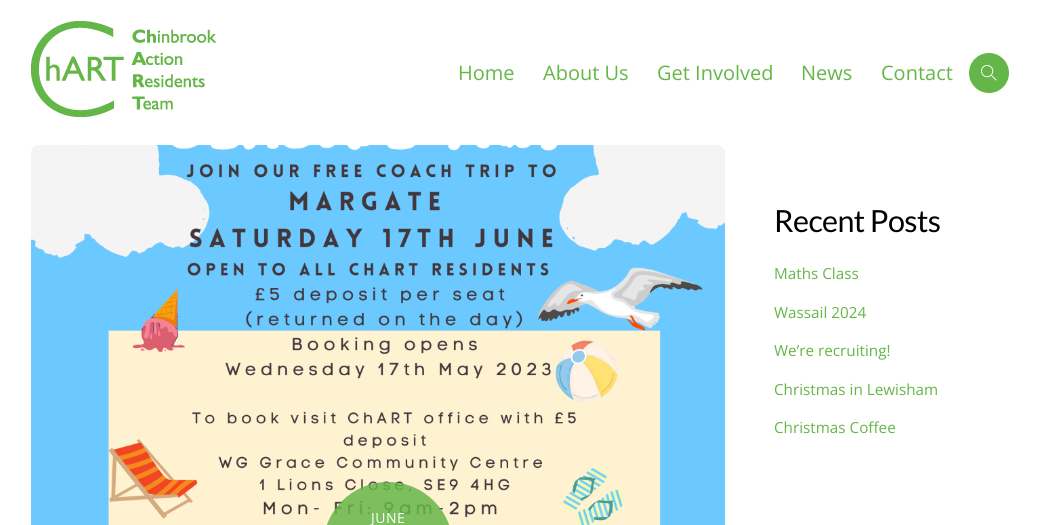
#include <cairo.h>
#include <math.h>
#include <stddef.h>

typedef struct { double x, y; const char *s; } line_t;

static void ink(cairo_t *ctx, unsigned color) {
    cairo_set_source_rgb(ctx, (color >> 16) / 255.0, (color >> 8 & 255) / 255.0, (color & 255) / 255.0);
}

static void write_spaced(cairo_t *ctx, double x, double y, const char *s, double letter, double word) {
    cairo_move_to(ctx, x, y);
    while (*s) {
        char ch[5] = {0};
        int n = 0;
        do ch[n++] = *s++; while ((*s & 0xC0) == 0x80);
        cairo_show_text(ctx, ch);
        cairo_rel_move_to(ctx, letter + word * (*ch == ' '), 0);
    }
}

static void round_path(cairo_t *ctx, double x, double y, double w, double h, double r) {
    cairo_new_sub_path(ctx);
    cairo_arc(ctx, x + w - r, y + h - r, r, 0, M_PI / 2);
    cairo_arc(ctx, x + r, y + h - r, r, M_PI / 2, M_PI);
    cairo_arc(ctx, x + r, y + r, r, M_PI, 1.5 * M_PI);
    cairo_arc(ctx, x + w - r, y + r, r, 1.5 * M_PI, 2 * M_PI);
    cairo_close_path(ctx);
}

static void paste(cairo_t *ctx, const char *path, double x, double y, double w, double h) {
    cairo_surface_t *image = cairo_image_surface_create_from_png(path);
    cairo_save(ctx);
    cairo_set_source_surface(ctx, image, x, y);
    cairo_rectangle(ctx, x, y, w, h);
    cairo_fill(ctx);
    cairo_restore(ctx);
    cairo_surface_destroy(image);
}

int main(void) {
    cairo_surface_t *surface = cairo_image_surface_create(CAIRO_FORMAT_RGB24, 1040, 525);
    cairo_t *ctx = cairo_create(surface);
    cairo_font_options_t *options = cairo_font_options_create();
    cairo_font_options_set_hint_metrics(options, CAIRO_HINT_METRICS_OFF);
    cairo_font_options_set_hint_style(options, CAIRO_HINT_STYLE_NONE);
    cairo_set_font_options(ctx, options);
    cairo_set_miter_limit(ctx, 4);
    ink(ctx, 0xFFFFFF);
    cairo_paint(ctx);
    paste(ctx, "media/1.png", 31, 21, 185, 96);
    cairo_select_font_face(ctx, "Open Sans", CAIRO_FONT_SLANT_NORMAL, CAIRO_FONT_WEIGHT_NORMAL);
    cairo_set_font_size(ctx, 20);
    ink(ctx, 0x65B648);
    {
        static const line_t items[] = {
            {458, 80, "Home"},
            {543, 80, "About Us"},
            {657, 80, "Get Involved"},
            {801, 80, "News"},
            {881, 80, "Contact"},
        };
        for (size_t i = 0; i < sizeof items / sizeof *items; i++) {
            cairo_move_to(ctx, items[i].x, items[i].y);
            cairo_show_text(ctx, items[i].s);
        }
    }
    cairo_new_path(ctx);
    cairo_arc(ctx, 989, 73, 20, 0, 2 * M_PI);
    cairo_fill(ctx);
    paste(ctx, "media/2.png", 981, 65, 16, 16);
    cairo_select_font_face(ctx, "Lato", CAIRO_FONT_SLANT_NORMAL, CAIRO_FONT_WEIGHT_NORMAL);
    cairo_set_font_size(ctx, 30.5);
    ink(ctx, 0x000000);
    write_spaced(ctx, 774, 232, "Recent Posts", -0.6, 0);
    cairo_select_font_face(ctx, "Open Sans", CAIRO_FONT_SLANT_NORMAL, CAIRO_FONT_WEIGHT_NORMAL);
    cairo_set_font_size(ctx, 15.25);
    ink(ctx, 0x65B648);
    {
        static const line_t items[] = {
            {774, 279, "Maths Class"},
            {774, 318, "Wassail 2024"},
            {774, 356, "We’re recruiting!"},
            {774, 395, "Christmas in Lewisham"},
            {774, 433, "Christmas Coffee"},
        };
        for (size_t i = 0; i < sizeof items / sizeof *items; i++) {
            cairo_move_to(ctx, items[i].x, items[i].y);
            cairo_show_text(ctx, items[i].s);
        }
    }
    paste(ctx, "media/3.png", 31, 145, 694, 380);
    cairo_set_source_rgba(ctx, 0.396, 0.714, 0.282, 0.85);
    round_path(ctx, 323, 482, 130, 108, 65);
    cairo_fill(ctx);
    cairo_set_font_size(ctx, 14);
    ink(ctx, 0xFFFFFF);
    write_spaced(ctx, 371, 523, "JUNE", 0.5, 0);
    cairo_surface_write_to_png(surface, "image.png");
    cairo_font_options_destroy(options);
    cairo_destroy(ctx);
    cairo_surface_destroy(surface);
    return 0;
}
